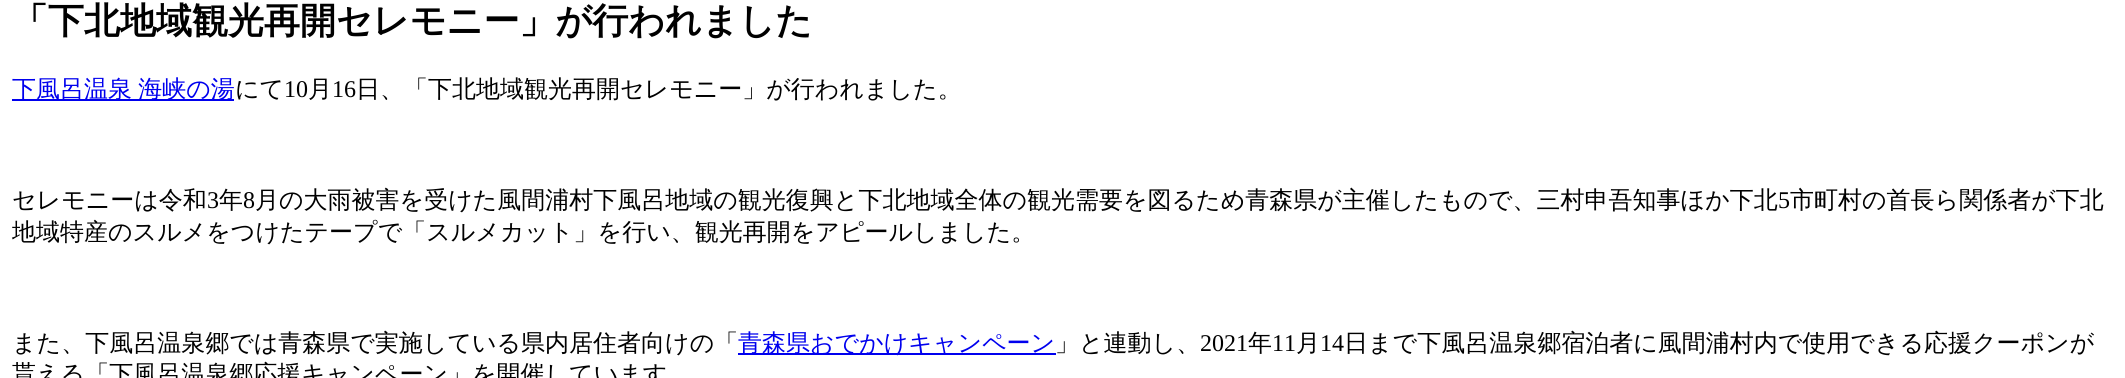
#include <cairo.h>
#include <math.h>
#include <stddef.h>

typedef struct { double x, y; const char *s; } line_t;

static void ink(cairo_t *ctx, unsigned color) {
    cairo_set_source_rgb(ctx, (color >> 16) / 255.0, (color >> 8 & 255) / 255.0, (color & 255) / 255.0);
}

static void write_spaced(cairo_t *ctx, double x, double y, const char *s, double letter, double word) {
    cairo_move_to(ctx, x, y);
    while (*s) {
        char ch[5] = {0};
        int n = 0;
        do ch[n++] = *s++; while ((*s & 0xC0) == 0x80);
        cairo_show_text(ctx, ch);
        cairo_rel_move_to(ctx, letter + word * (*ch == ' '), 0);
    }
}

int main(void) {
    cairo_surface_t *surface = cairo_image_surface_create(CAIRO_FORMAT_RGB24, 2125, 378);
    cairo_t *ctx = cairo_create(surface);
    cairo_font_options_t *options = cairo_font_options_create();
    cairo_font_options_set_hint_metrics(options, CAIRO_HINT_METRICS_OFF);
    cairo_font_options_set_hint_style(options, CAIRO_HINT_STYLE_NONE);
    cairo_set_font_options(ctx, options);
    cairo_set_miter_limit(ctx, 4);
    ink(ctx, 0xFFFFFF);
    cairo_paint(ctx);
    cairo_select_font_face(ctx, "WenQuanYi Zen Hei", CAIRO_FONT_SLANT_NORMAL, CAIRO_FONT_WEIGHT_BOLD);
    cairo_set_font_size(ctx, 36);
    ink(ctx, 0x000000);
    cairo_move_to(ctx, 12, 33);
    cairo_show_text(ctx, "「下北地域観光再開セレモニー」が行われました");
    ink(ctx, 0x0000EE);
    cairo_rectangle(ctx, 12, 99, 222, 2);
    cairo_fill(ctx);
    cairo_select_font_face(ctx, "WenQuanYi Zen Hei Medium", CAIRO_FONT_SLANT_NORMAL, CAIRO_FONT_WEIGHT_NORMAL);
    cairo_set_font_size(ctx, 24);
    write_spaced(ctx, 12, 97, "下風呂温泉 海峡の湯", 0, -1);
    ink(ctx, 0x000000);
    cairo_move_to(ctx, 235, 97);
    cairo_show_text(ctx, "にて");
    cairo_select_font_face(ctx, "Liberation Serif", CAIRO_FONT_SLANT_NORMAL, CAIRO_FONT_WEIGHT_NORMAL);
    cairo_move_to(ctx, 284, 97);
    cairo_show_text(ctx, "10");
    cairo_select_font_face(ctx, "WenQuanYi Zen Hei Medium", CAIRO_FONT_SLANT_NORMAL, CAIRO_FONT_WEIGHT_NORMAL);
    cairo_move_to(ctx, 308, 97);
    cairo_show_text(ctx, "月");
    cairo_select_font_face(ctx, "Liberation Serif", CAIRO_FONT_SLANT_NORMAL, CAIRO_FONT_WEIGHT_NORMAL);
    cairo_move_to(ctx, 332, 97);
    cairo_show_text(ctx, "16");
    cairo_select_font_face(ctx, "WenQuanYi Zen Hei Medium", CAIRO_FONT_SLANT_NORMAL, CAIRO_FONT_WEIGHT_NORMAL);
    cairo_move_to(ctx, 356, 97);
    cairo_show_text(ctx, "日、「下北地域観光再開セレモニー」が行われました。");
    cairo_move_to(ctx, 12, 208);
    cairo_show_text(ctx, "セレモニーは令和");
    cairo_select_font_face(ctx, "Liberation Serif", CAIRO_FONT_SLANT_NORMAL, CAIRO_FONT_WEIGHT_NORMAL);
    cairo_move_to(ctx, 207, 208);
    cairo_show_text(ctx, "3");
    cairo_select_font_face(ctx, "WenQuanYi Zen Hei Medium", CAIRO_FONT_SLANT_NORMAL, CAIRO_FONT_WEIGHT_NORMAL);
    cairo_move_to(ctx, 219, 208);
    cairo_show_text(ctx, "年");
    cairo_select_font_face(ctx, "Liberation Serif", CAIRO_FONT_SLANT_NORMAL, CAIRO_FONT_WEIGHT_NORMAL);
    cairo_move_to(ctx, 243, 208);
    cairo_show_text(ctx, "8");
    cairo_select_font_face(ctx, "WenQuanYi Zen Hei Medium", CAIRO_FONT_SLANT_NORMAL, CAIRO_FONT_WEIGHT_NORMAL);
    cairo_move_to(ctx, 255, 208);
    cairo_show_text(ctx, "月の大雨被害を受けた風間浦村下風呂地域の観光復興と下北地域全体の観光需要を図るため青森県が主催したもので、三村申吾知事ほか下北");
    cairo_select_font_face(ctx, "Liberation Serif", CAIRO_FONT_SLANT_NORMAL, CAIRO_FONT_WEIGHT_NORMAL);
    cairo_move_to(ctx, 1778, 208);
    cairo_show_text(ctx, "5");
    cairo_select_font_face(ctx, "WenQuanYi Zen Hei Medium", CAIRO_FONT_SLANT_NORMAL, CAIRO_FONT_WEIGHT_NORMAL);
    {
        static const line_t items[] = {
            {1790, 208, "市町村の首長ら関係者が下北"},
            {12, 240, "地域特産のスルメをつけたテープで「スルメカット」を行い、観光再開をアピールしました。"},
            {12, 351, "また、下風呂温泉郷では青森県で実施している県内居住者向けの「"},
        };
        for (size_t i = 0; i < sizeof items / sizeof *items; i++) {
            cairo_move_to(ctx, items[i].x, items[i].y);
            cairo_show_text(ctx, items[i].s);
        }
    }
    ink(ctx, 0x0000EE);
    cairo_rectangle(ctx, 738, 353, 318, 2);
    cairo_fill(ctx);
    cairo_move_to(ctx, 738, 351);
    cairo_show_text(ctx, "青森県おでかけキャンペーン");
    ink(ctx, 0x000000);
    cairo_move_to(ctx, 1055, 351);
    cairo_show_text(ctx, "」と連動し、");
    cairo_select_font_face(ctx, "Liberation Serif", CAIRO_FONT_SLANT_NORMAL, CAIRO_FONT_WEIGHT_NORMAL);
    cairo_move_to(ctx, 1200, 351);
    cairo_show_text(ctx, "2021");
    cairo_select_font_face(ctx, "WenQuanYi Zen Hei Medium", CAIRO_FONT_SLANT_NORMAL, CAIRO_FONT_WEIGHT_NORMAL);
    cairo_move_to(ctx, 1248, 351);
    cairo_show_text(ctx, "年");
    cairo_select_font_face(ctx, "Liberation Serif", CAIRO_FONT_SLANT_NORMAL, CAIRO_FONT_WEIGHT_NORMAL);
    cairo_move_to(ctx, 1272, 351);
    cairo_show_text(ctx, "11");
    cairo_select_font_face(ctx, "WenQuanYi Zen Hei Medium", CAIRO_FONT_SLANT_NORMAL, CAIRO_FONT_WEIGHT_NORMAL);
    cairo_move_to(ctx, 1296, 351);
    cairo_show_text(ctx, "月");
    cairo_select_font_face(ctx, "Liberation Serif", CAIRO_FONT_SLANT_NORMAL, CAIRO_FONT_WEIGHT_NORMAL);
    cairo_move_to(ctx, 1320, 351);
    cairo_show_text(ctx, "14");
    cairo_select_font_face(ctx, "WenQuanYi Zen Hei Medium", CAIRO_FONT_SLANT_NORMAL, CAIRO_FONT_WEIGHT_NORMAL);
    cairo_move_to(ctx, 1344, 351);
    cairo_show_text(ctx, "日まで下風呂温泉郷宿泊者に風間浦村内で使用できる応援クーポンが");
    cairo_move_to(ctx, 12, 382);
    cairo_show_text(ctx, "貰える「下風呂温泉郷応援キャンペーン」を開催しています");
    cairo_surface_write_to_png(surface, "image.png");
    cairo_font_options_destroy(options);
    cairo_destroy(ctx);
    cairo_surface_destroy(surface);
    return 0;
}
